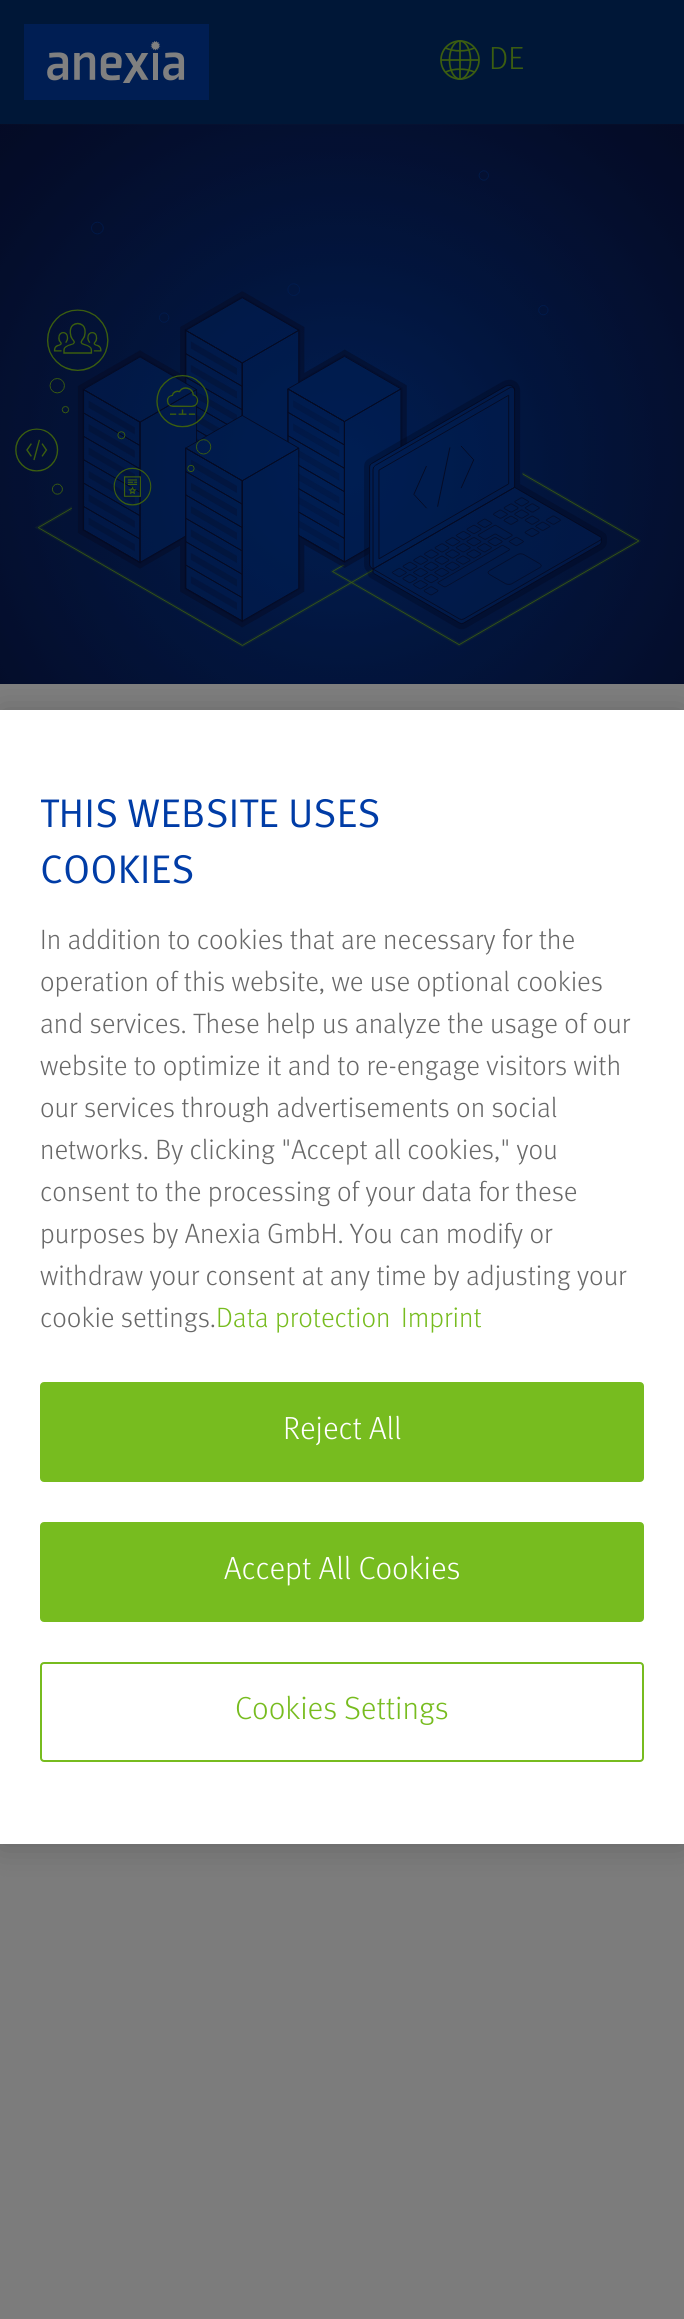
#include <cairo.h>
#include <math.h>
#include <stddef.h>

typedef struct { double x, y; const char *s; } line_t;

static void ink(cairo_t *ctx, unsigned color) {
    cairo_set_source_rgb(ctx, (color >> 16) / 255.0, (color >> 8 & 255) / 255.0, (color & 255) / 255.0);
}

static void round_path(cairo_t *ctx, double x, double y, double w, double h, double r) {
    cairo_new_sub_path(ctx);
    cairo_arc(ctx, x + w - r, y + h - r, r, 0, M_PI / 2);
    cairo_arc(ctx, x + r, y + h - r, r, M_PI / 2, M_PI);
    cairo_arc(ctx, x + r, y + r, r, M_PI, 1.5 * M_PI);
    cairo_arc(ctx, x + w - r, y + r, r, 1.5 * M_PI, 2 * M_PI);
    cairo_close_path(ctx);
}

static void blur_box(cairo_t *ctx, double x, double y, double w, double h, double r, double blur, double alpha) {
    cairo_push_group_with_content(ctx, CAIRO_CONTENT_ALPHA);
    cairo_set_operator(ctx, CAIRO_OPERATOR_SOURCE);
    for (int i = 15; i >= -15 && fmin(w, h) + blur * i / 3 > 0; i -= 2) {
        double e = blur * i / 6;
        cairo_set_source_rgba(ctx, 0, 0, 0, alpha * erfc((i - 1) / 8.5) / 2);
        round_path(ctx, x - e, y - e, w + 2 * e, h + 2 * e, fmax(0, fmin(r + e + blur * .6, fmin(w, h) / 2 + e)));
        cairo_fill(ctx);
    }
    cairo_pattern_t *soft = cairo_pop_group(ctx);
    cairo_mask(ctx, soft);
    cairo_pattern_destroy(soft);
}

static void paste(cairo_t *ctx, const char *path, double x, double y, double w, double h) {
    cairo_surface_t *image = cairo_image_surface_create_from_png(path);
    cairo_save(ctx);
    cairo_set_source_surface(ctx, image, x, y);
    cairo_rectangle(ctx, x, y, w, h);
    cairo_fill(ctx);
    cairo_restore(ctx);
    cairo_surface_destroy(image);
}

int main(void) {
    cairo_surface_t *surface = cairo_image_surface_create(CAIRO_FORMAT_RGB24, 684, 2319);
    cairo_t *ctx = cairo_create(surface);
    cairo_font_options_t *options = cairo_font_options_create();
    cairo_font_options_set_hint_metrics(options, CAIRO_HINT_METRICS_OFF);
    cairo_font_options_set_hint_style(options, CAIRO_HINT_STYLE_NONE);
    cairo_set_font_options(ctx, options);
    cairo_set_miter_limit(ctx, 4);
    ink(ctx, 0x7C7C7C);
    cairo_paint(ctx);
    ink(ctx, 0x001737);
    cairo_rectangle(ctx, 0, 0, 684, 124);
    cairo_fill(ctx);
    paste(ctx, "media/1.png", 24, 24, 185, 76);
    paste(ctx, "media/2.png", 440, 40, 40, 40);
    cairo_select_font_face(ctx, "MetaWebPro", CAIRO_FONT_SLANT_NORMAL, CAIRO_FONT_WEIGHT_NORMAL);
    cairo_set_font_size(ctx, 32);
    ink(ctx, 0x3C5E10);
    cairo_move_to(ctx, 489, 69);
    cairo_show_text(ctx, "DE");
    paste(ctx, "media/3.png", 0, 124, 684, 560);
    ink(ctx, 0x808080);
    cairo_rectangle(ctx, 0, 684, 684, 26);
    cairo_fill(ctx);
    ink(ctx, 0x000000);
    blur_box(ctx, 0, 710, 684, 1134, 0, 18, 0.2);
    ink(ctx, 0xFFFFFF);
    cairo_rectangle(ctx, 0, 710, 684, 1134);
    cairo_fill(ctx);
    cairo_select_font_face(ctx, "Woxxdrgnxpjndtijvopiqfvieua", CAIRO_FONT_SLANT_NORMAL, CAIRO_FONT_WEIGHT_NORMAL);
    cairo_set_font_size(ctx, 40);
    ink(ctx, 0x003CA6);
    cairo_move_to(ctx, 40, 827);
    cairo_show_text(ctx, "THIS WEBSITE USES");
    cairo_move_to(ctx, 40, 883);
    cairo_show_text(ctx, "COOKIES");
    cairo_select_font_face(ctx, "MetaWebPro", CAIRO_FONT_SLANT_NORMAL, CAIRO_FONT_WEIGHT_NORMAL);
    cairo_set_font_size(ctx, 28);
    ink(ctx, 0x686868);
    {
        static const line_t items[] = {
            {40, 949, "In addition to cookies that are necessary for the"},
            {40, 991, "operation of this website, we use optional cookies"},
            {40, 1033, "and services. These help us analyze the usage of our"},
            {40, 1075, "website to optimize it and to re-engage visitors with"},
            {40, 1117, "our services through advertisements on social"},
            {40, 1159, "networks. By clicking \"Accept all cookies,\" you"},
            {40, 1201, "consent to the processing of your data for these"},
            {40, 1243, "purposes by Anexia GmbH. You can modify or"},
            {40, 1285, "withdraw your consent at any time by adjusting your"},
            {40, 1327, "cookie settings."},
        };
        for (size_t i = 0; i < sizeof items / sizeof *items; i++) {
            cairo_move_to(ctx, items[i].x, items[i].y);
            cairo_show_text(ctx, items[i].s);
        }
    }
    ink(ctx, 0x77BC1F);
    cairo_move_to(ctx, 216, 1327);
    cairo_show_text(ctx, "Data protection");
    cairo_move_to(ctx, 401, 1327);
    cairo_show_text(ctx, "Imprint");
    round_path(ctx, 41, 1383, 602, 98, 3);
    cairo_fill_preserve(ctx);
    cairo_stroke(ctx);
    cairo_set_font_size(ctx, 32);
    ink(ctx, 0xFFFFFF);
    cairo_move_to(ctx, 283, 1439);
    cairo_show_text(ctx, "Reject All");
    ink(ctx, 0x77BC1F);
    round_path(ctx, 41, 1523, 602, 98, 3);
    cairo_fill_preserve(ctx);
    cairo_stroke(ctx);
    ink(ctx, 0xFFFFFF);
    cairo_move_to(ctx, 224, 1579);
    cairo_show_text(ctx, "Accept All Cookies");
    round_path(ctx, 41, 1663, 602, 98, 3);
    ink(ctx, 0x77BC1F);
    cairo_stroke(ctx);
    cairo_move_to(ctx, 235, 1719);
    cairo_show_text(ctx, "Cookies Settings");
    cairo_surface_write_to_png(surface, "image.png");
    cairo_font_options_destroy(options);
    cairo_destroy(ctx);
    cairo_surface_destroy(surface);
    return 0;
}
